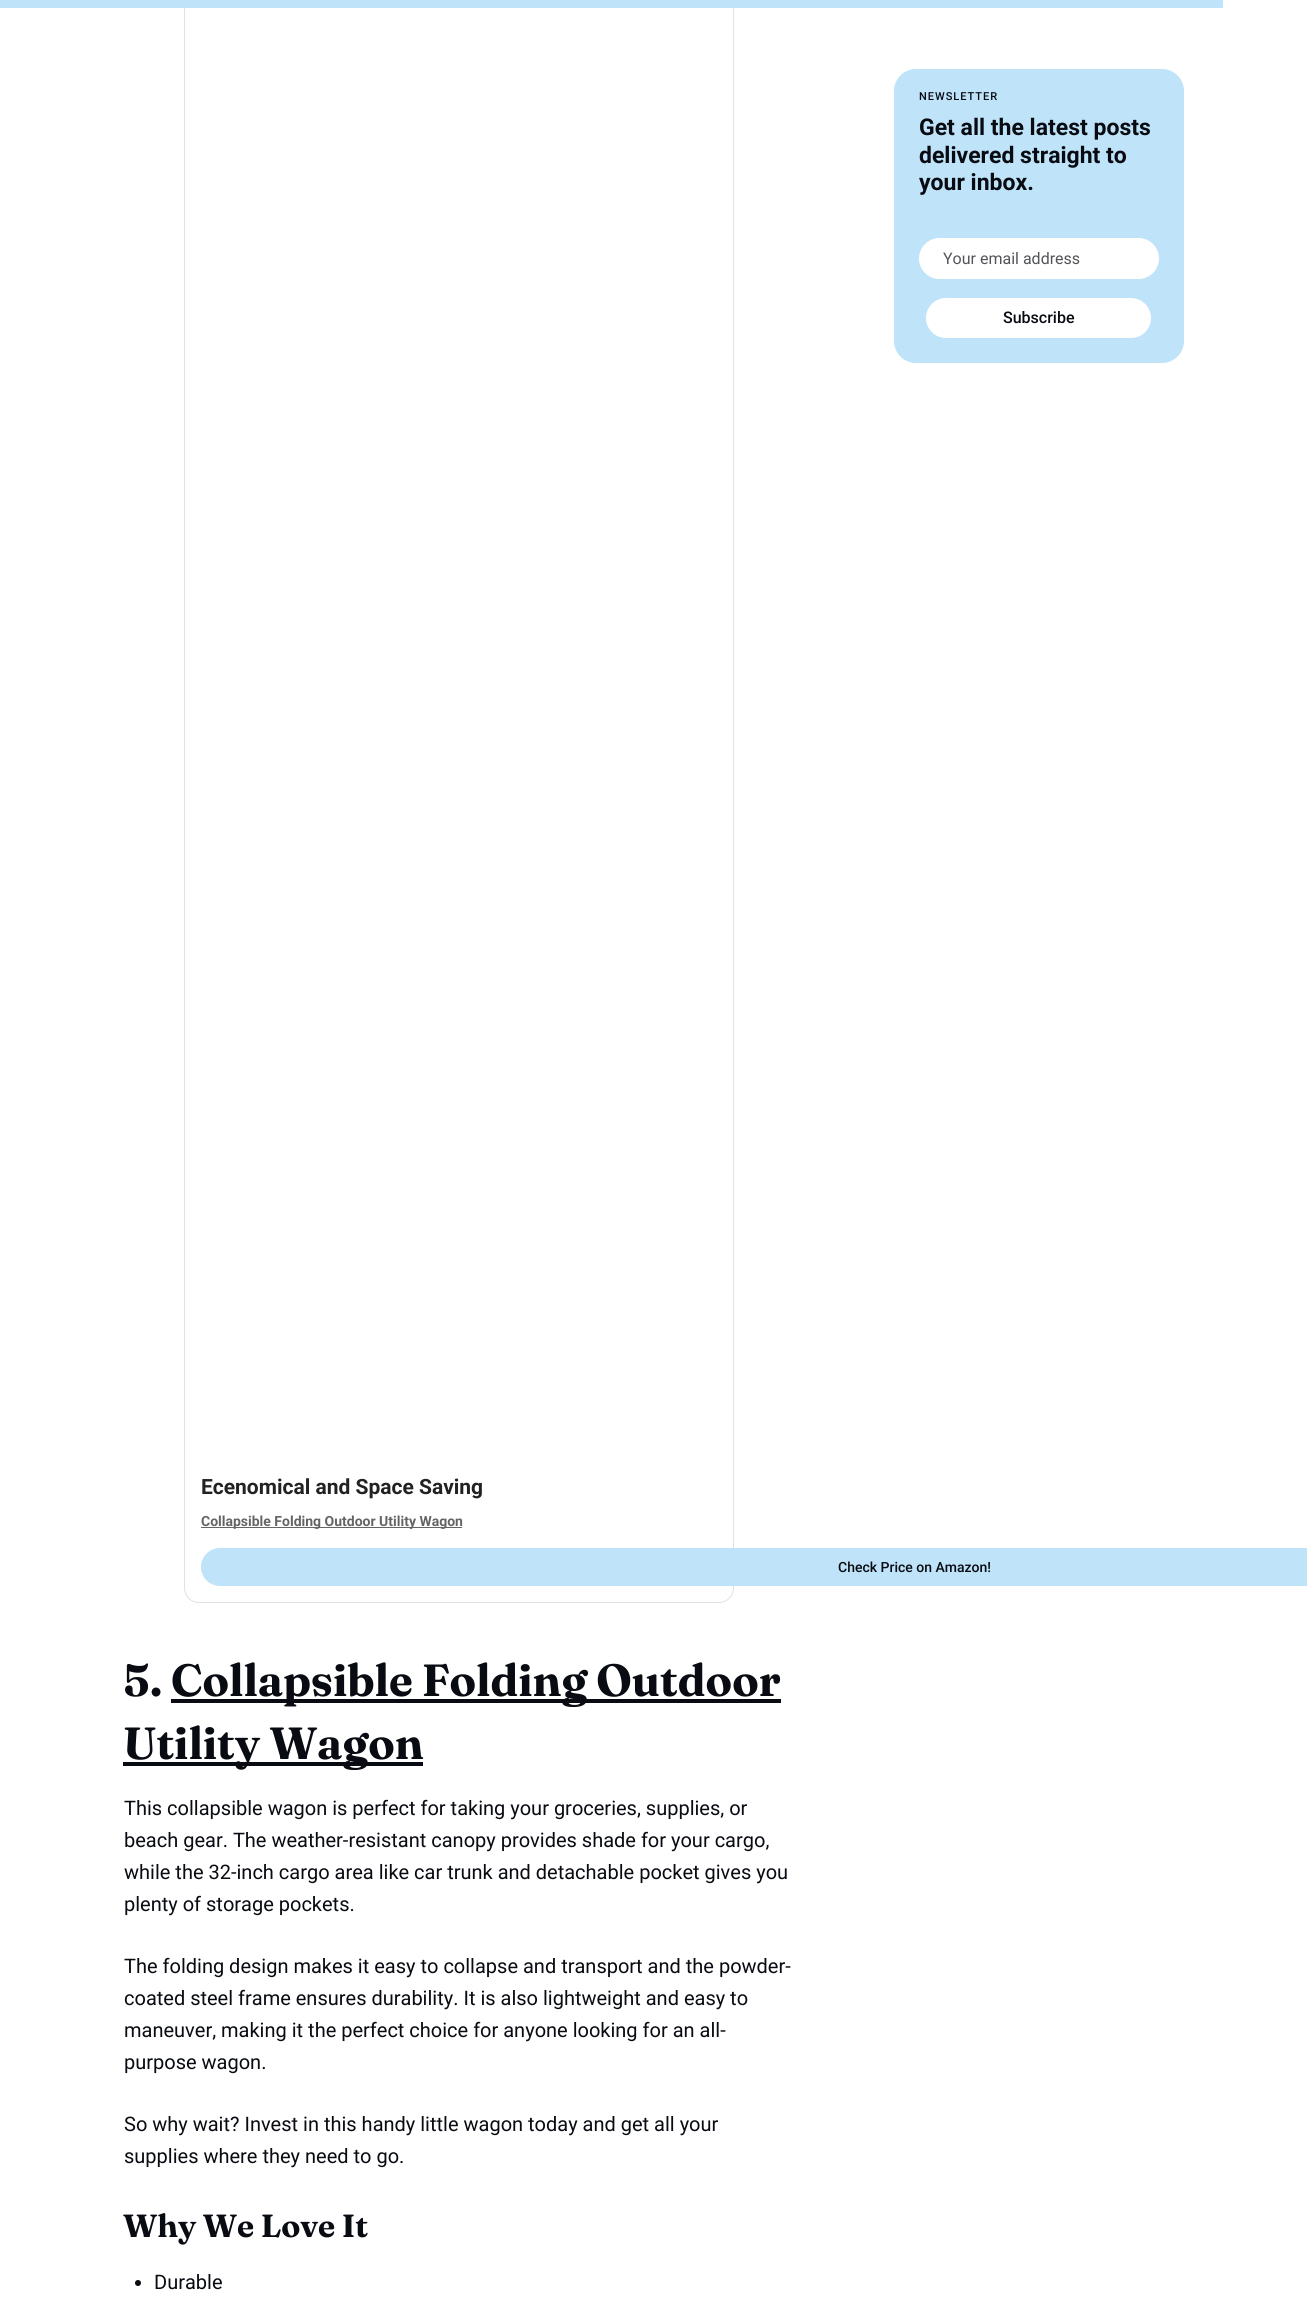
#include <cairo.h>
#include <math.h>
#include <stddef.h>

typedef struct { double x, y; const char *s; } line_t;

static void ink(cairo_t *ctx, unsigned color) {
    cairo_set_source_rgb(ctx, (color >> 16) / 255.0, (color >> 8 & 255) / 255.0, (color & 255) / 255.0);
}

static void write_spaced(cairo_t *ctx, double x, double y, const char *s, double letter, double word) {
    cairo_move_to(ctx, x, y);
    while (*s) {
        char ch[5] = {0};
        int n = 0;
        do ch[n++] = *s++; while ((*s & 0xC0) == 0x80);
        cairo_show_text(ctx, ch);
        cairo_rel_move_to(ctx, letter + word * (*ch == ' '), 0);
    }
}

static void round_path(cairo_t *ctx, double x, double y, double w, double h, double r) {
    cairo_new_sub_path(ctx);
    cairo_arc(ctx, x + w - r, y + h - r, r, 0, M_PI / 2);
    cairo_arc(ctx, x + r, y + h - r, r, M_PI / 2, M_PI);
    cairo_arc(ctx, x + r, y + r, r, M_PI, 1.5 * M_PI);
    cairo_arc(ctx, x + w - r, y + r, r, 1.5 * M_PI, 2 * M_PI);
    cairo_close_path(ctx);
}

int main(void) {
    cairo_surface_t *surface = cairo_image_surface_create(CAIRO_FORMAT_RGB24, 1307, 2302);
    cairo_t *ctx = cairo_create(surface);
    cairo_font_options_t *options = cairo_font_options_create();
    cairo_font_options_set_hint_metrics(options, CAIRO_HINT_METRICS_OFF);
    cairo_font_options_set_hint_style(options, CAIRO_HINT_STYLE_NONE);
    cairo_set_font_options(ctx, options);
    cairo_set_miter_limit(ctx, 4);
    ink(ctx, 0xFFFFFF);
    cairo_paint(ctx);
    round_path(ctx, 184.5, -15.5, 549, 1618, 14.5);
    ink(ctx, 0xDFE2E6);
    cairo_set_line_width(ctx, 1);
    cairo_stroke(ctx);
    ink(ctx, 0xBFE3F8);
    cairo_rectangle(ctx, 0, 0, 1223, 8);
    cairo_fill(ctx);
    round_path(ctx, 894, 69, 290, 294, 22);
    cairo_fill(ctx);
    cairo_select_font_face(ctx, "Roboto Medium", CAIRO_FONT_SLANT_NORMAL, CAIRO_FONT_WEIGHT_NORMAL);
    cairo_set_font_size(ctx, 11);
    ink(ctx, 0x080B12);
    write_spaced(ctx, 919, 100, "NEWSLETTER", 1, 0);
    cairo_select_font_face(ctx, "Roboto", CAIRO_FONT_SLANT_NORMAL, CAIRO_FONT_WEIGHT_BOLD);
    cairo_set_font_size(ctx, 23);
    {
        static const line_t items[] = {
            {919, 135, "Get all the latest posts"},
            {919, 163, "delivered straight to"},
            {919, 190, "your inbox."},
        };
        for (size_t i = 0; i < sizeof items / sizeof *items; i++) {
            cairo_move_to(ctx, items[i].x, items[i].y);
            cairo_show_text(ctx, items[i].s);
        }
    }
    ink(ctx, 0xFFFFFF);
    round_path(ctx, 919, 238, 240, 41, 20.5);
    cairo_fill(ctx);
    cairo_select_font_face(ctx, "Roboto", CAIRO_FONT_SLANT_NORMAL, CAIRO_FONT_WEIGHT_NORMAL);
    cairo_set_font_size(ctx, 16);
    ink(ctx, 0x525459);
    cairo_move_to(ctx, 943, 264);
    cairo_show_text(ctx, "Your email address");
    ink(ctx, 0xFFFFFF);
    round_path(ctx, 926, 298, 225, 40, 20);
    cairo_fill(ctx);
    cairo_select_font_face(ctx, "Roboto Medium", CAIRO_FONT_SLANT_NORMAL, CAIRO_FONT_WEIGHT_NORMAL);
    ink(ctx, 0x080B12);
    cairo_move_to(ctx, 1003, 323);
    cairo_show_text(ctx, "Subscribe");
    cairo_select_font_face(ctx, "Roboto", CAIRO_FONT_SLANT_NORMAL, CAIRO_FONT_WEIGHT_BOLD);
    cairo_set_font_size(ctx, 21);
    ink(ctx, 0x222222);
    cairo_move_to(ctx, 201, 1494);
    cairo_show_text(ctx, "Ecenomical and Space Saving");
    ink(ctx, 0x646464);
    cairo_rectangle(ctx, 201, 1527, 261, 1);
    cairo_fill(ctx);
    cairo_set_font_size(ctx, 14);
    cairo_move_to(ctx, 201, 1526);
    cairo_show_text(ctx, "Collapsible Folding Outdoor Utility Wagon");
    ink(ctx, 0xBFE3F8);
    round_path(ctx, 201, 1548, 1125, 38, 19);
    cairo_fill(ctx);
    cairo_select_font_face(ctx, "Roboto Medium", CAIRO_FONT_SLANT_NORMAL, CAIRO_FONT_WEIGHT_NORMAL);
    ink(ctx, 0x080B12);
    cairo_move_to(ctx, 838, 1572);
    cairo_show_text(ctx, "Check Price on Amazon!");
    cairo_select_font_face(ctx, "Fraunces", CAIRO_FONT_SLANT_NORMAL, CAIRO_FONT_WEIGHT_BOLD);
    cairo_set_font_size(ctx, 45);
    cairo_move_to(ctx, 123, 1696);
    cairo_show_text(ctx, "5.");
    cairo_rectangle(ctx, 171, 1699, 610, 4);
    cairo_fill(ctx);
    cairo_move_to(ctx, 171, 1696);
    cairo_show_text(ctx, "Collapsible Folding Outdoor");
    cairo_rectangle(ctx, 123, 1762, 300, 4);
    cairo_fill(ctx);
    cairo_move_to(ctx, 123, 1759);
    cairo_show_text(ctx, "Utility Wagon");
    cairo_select_font_face(ctx, "Roboto", CAIRO_FONT_SLANT_NORMAL, CAIRO_FONT_WEIGHT_NORMAL);
    cairo_set_font_size(ctx, 20);
    {
        static const line_t items[] = {
            {124, 1815, "This collapsible wagon is perfect for taking your groceries, supplies, or"},
            {124, 1847, "beach gear. The weather-resistant canopy provides shade for your cargo,"},
            {124, 1879, "while the 32-inch cargo area like car trunk and detachable pocket gives you"},
            {124, 1911, "plenty of storage pockets."},
            {124, 1973, "The folding design makes it easy to collapse and transport and the powder-"},
            {124, 2005, "coated steel frame ensures durability. It is also lightweight and easy to"},
            {124, 2037, "maneuver, making it the perfect choice for anyone looking for an all-"},
            {124, 2069, "purpose wagon."},
            {124, 2131, "So why wait? Invest in this handy little wagon today and get all your"},
            {124, 2163, "supplies where they need to go."},
        };
        for (size_t i = 0; i < sizeof items / sizeof *items; i++) {
            cairo_move_to(ctx, items[i].x, items[i].y);
            cairo_show_text(ctx, items[i].s);
        }
    }
    cairo_select_font_face(ctx, "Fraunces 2", CAIRO_FONT_SLANT_NORMAL, CAIRO_FONT_WEIGHT_BOLD);
    cairo_set_font_size(ctx, 32);
    cairo_move_to(ctx, 123, 2237);
    cairo_show_text(ctx, "Why We Love It");
    cairo_new_path(ctx);
    cairo_arc(ctx, 138, 2283, 3, 0, 2 * M_PI);
    cairo_fill(ctx);
    cairo_select_font_face(ctx, "Roboto", CAIRO_FONT_SLANT_NORMAL, CAIRO_FONT_WEIGHT_NORMAL);
    cairo_set_font_size(ctx, 20);
    cairo_move_to(ctx, 154, 2289);
    cairo_show_text(ctx, "Durable");
    cairo_surface_write_to_png(surface, "image.png");
    cairo_font_options_destroy(options);
    cairo_destroy(ctx);
    cairo_surface_destroy(surface);
    return 0;
}
